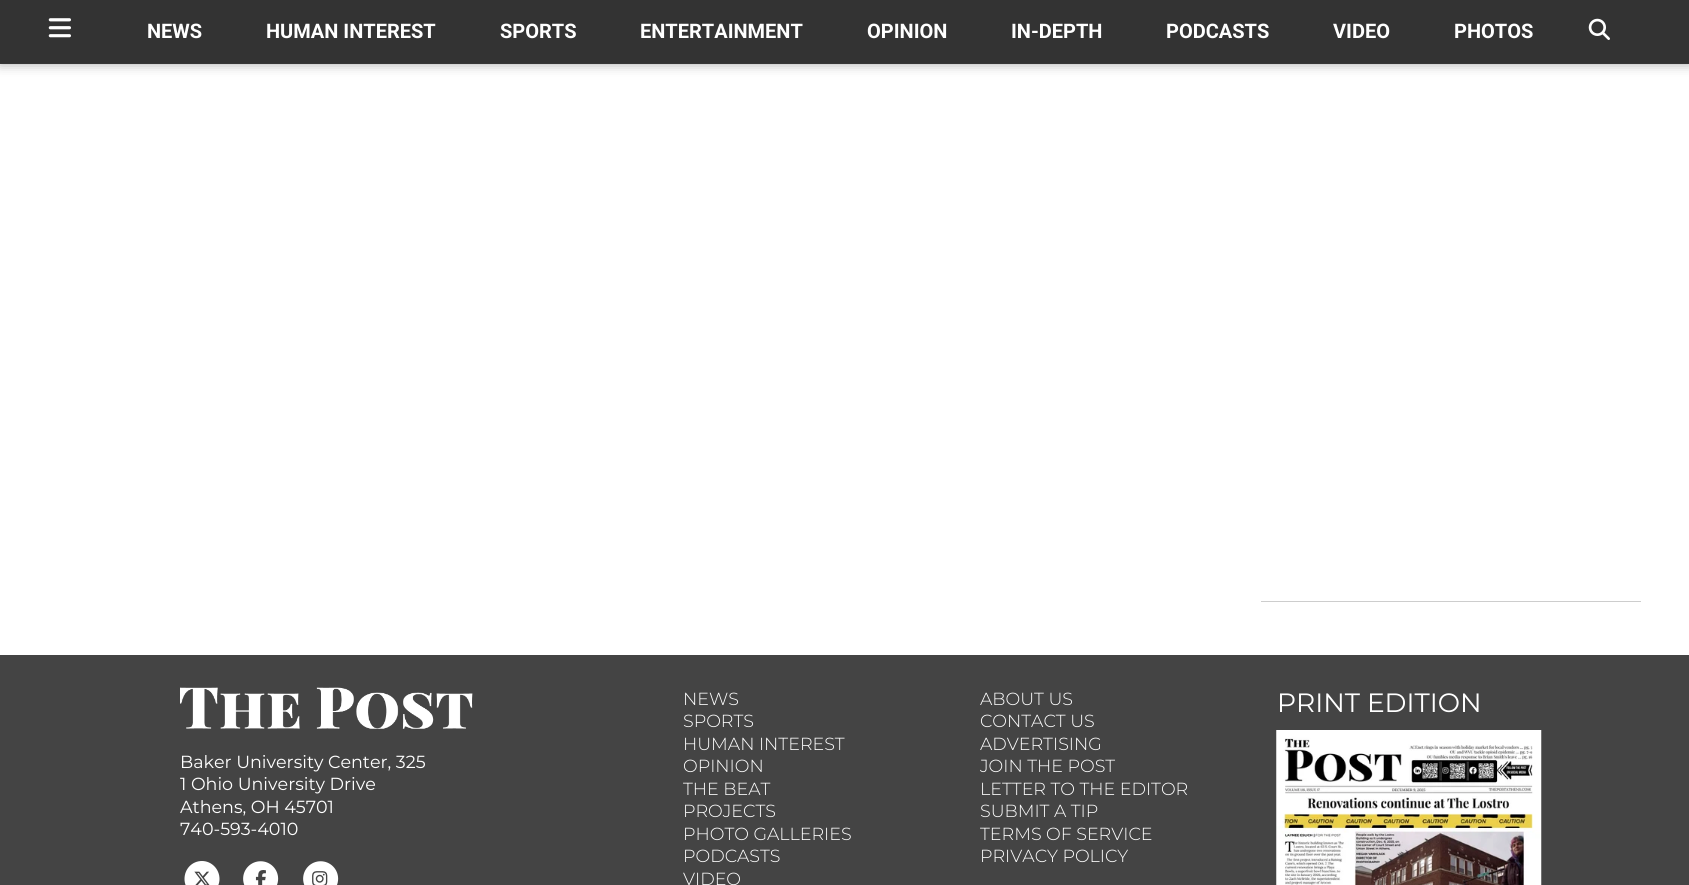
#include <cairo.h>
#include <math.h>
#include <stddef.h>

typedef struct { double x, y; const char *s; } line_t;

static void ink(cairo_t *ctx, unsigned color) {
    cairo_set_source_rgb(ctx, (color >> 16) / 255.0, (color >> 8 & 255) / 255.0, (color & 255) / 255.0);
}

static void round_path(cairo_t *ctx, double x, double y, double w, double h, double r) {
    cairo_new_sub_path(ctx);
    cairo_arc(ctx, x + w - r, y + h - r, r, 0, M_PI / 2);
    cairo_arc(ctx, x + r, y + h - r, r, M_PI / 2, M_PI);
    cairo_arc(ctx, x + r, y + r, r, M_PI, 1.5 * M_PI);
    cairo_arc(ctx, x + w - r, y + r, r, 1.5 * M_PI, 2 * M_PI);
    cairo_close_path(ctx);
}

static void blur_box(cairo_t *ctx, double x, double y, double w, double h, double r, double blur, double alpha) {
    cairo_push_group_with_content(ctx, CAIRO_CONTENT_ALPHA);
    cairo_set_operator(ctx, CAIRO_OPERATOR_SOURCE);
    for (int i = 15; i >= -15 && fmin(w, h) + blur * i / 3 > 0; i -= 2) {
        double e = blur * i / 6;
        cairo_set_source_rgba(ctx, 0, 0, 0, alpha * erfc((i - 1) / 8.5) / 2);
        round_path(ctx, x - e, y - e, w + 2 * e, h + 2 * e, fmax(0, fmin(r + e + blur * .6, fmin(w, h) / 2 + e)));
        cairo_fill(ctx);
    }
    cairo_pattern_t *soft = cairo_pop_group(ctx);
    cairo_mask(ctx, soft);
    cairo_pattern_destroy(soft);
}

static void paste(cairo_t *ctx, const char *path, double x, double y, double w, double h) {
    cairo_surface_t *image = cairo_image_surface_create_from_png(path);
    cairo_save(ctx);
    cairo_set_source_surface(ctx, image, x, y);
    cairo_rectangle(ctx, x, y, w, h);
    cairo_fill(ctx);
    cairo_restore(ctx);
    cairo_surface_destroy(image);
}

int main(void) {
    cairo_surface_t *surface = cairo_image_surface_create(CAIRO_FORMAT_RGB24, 1689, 885);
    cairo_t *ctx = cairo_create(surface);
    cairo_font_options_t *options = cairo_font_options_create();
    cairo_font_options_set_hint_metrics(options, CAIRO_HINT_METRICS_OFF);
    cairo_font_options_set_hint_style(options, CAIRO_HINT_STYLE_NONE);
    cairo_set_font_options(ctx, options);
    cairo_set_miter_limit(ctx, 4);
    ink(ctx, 0xFFFFFF);
    cairo_paint(ctx);
    ink(ctx, 0x000000);
    blur_box(ctx, 0, 0, 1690, 64, 0, 6, 0.33);
    ink(ctx, 0x333333);
    cairo_rectangle(ctx, 0, 0, 1689, 63);
    cairo_fill(ctx);
    ink(ctx, 0x373737);
    cairo_rectangle(ctx, 0, 63, 1689, 1);
    cairo_fill(ctx);
    paste(ctx, "media/1.png", 48, 18, 23, 20);
    cairo_select_font_face(ctx, "Roboto", CAIRO_FONT_SLANT_NORMAL, CAIRO_FONT_WEIGHT_BOLD);
    cairo_set_font_size(ctx, 20);
    ink(ctx, 0xFFFFFF);
    {
        static const line_t items[] = {
            {147, 38, "NEWS"},
            {266, 38, "HUMAN INTEREST"},
            {500, 38, "SPORTS"},
            {640, 38, "ENTERTAINMENT"},
            {867, 38, "OPINION"},
            {1011, 38, "IN-DEPTH"},
            {1166, 38, "PODCASTS"},
            {1333, 38, "VIDEO"},
            {1454, 38, "PHOTOS"},
        };
        for (size_t i = 0; i < sizeof items / sizeof *items; i++) {
            cairo_move_to(ctx, items[i].x, items[i].y);
            cairo_show_text(ctx, items[i].s);
        }
    }
    paste(ctx, "media/2.png", 1588, 18, 22, 22);
    ink(ctx, 0xCDCDCD);
    cairo_rectangle(ctx, 1261, 601, 380, 1);
    cairo_fill(ctx);
    ink(ctx, 0x444444);
    cairo_rectangle(ctx, 0, 655, 1689, 230);
    cairo_fill(ctx);
    paste(ctx, "media/3.png", 180, 687, 293, 42);
    cairo_select_font_face(ctx, "Montserrat", CAIRO_FONT_SLANT_NORMAL, CAIRO_FONT_WEIGHT_NORMAL);
    cairo_set_font_size(ctx, 17.5);
    ink(ctx, 0xFFFFFF);
    {
        static const line_t items[] = {
            {180, 768, "Baker University Center, 325"},
            {180, 790, "1 Ohio University Drive"},
            {180, 813, "Athens, OH 45701"},
            {180, 835, "740-593-4010"},
        };
        for (size_t i = 0; i < sizeof items / sizeof *items; i++) {
            cairo_move_to(ctx, items[i].x, items[i].y);
            cairo_show_text(ctx, items[i].s);
        }
    }
    cairo_new_path(ctx);
    cairo_move_to(ctx, 202, 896);
    cairo_curve_to(ctx, 211.5, 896, 219.5, 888.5, 219.5, 879);
    cairo_curve_to(ctx, 219.5, 869, 211.5, 861, 202, 861);
    cairo_curve_to(ctx, 192, 861, 184.5, 869, 184.5, 879);
    cairo_curve_to(ctx, 184.5, 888.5, 192, 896, 202, 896);
    cairo_close_path(ctx);
    cairo_fill(ctx);
    paste(ctx, "media/4.png", 194, 871, 16, 14);
    paste(ctx, "media/5.png", 243, 861, 36, 24);
    paste(ctx, "media/6.png", 255, 870, 11, 15);
    paste(ctx, "media/5.png", 303, 861, 36, 24);
    paste(ctx, "media/7.png", 312, 871, 16, 14);
    cairo_select_font_face(ctx, "Montserrat Light", CAIRO_FONT_SLANT_NORMAL, CAIRO_FONT_WEIGHT_NORMAL);
    {
        static const line_t items[] = {
            {683, 705, "NEWS"},
            {683, 727, "SPORTS"},
            {683, 750, "HUMAN INTEREST"},
            {683, 772, "OPINION"},
            {683, 795, "THE BEAT"},
            {683, 817, "PROJECTS"},
            {683, 840, "PHOTO GALLERIES"},
            {683, 862, "PODCASTS"},
            {683, 885, "VIDEO"},
            {980, 705, "ABOUT US"},
            {980, 727, "CONTACT US"},
            {980, 750, "ADVERTISING"},
            {980, 772, "JOIN THE POST"},
            {980, 795, "LETTER TO THE EDITOR"},
            {980, 817, "SUBMIT A TIP"},
            {980, 840, "TERMS OF SERVICE"},
            {980, 862, "PRIVACY POLICY"},
        };
        for (size_t i = 0; i < sizeof items / sizeof *items; i++) {
            cairo_move_to(ctx, items[i].x, items[i].y);
            cairo_show_text(ctx, items[i].s);
        }
    }
    cairo_select_font_face(ctx, "Montserrat", CAIRO_FONT_SLANT_NORMAL, CAIRO_FONT_WEIGHT_NORMAL);
    cairo_set_font_size(ctx, 26.5);
    cairo_move_to(ctx, 1277, 712);
    cairo_show_text(ctx, "PRINT EDITION");
    paste(ctx, "media/8.png", 1276, 730, 266, 155);
    cairo_surface_write_to_png(surface, "image.png");
    cairo_font_options_destroy(options);
    cairo_destroy(ctx);
    cairo_surface_destroy(surface);
    return 0;
}
